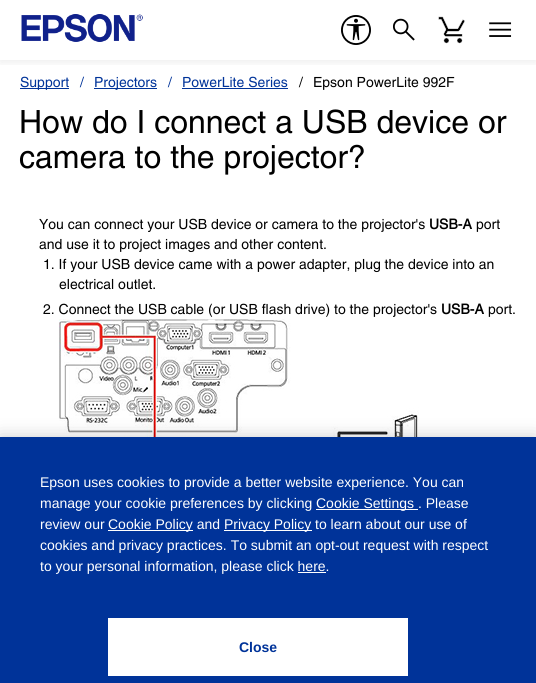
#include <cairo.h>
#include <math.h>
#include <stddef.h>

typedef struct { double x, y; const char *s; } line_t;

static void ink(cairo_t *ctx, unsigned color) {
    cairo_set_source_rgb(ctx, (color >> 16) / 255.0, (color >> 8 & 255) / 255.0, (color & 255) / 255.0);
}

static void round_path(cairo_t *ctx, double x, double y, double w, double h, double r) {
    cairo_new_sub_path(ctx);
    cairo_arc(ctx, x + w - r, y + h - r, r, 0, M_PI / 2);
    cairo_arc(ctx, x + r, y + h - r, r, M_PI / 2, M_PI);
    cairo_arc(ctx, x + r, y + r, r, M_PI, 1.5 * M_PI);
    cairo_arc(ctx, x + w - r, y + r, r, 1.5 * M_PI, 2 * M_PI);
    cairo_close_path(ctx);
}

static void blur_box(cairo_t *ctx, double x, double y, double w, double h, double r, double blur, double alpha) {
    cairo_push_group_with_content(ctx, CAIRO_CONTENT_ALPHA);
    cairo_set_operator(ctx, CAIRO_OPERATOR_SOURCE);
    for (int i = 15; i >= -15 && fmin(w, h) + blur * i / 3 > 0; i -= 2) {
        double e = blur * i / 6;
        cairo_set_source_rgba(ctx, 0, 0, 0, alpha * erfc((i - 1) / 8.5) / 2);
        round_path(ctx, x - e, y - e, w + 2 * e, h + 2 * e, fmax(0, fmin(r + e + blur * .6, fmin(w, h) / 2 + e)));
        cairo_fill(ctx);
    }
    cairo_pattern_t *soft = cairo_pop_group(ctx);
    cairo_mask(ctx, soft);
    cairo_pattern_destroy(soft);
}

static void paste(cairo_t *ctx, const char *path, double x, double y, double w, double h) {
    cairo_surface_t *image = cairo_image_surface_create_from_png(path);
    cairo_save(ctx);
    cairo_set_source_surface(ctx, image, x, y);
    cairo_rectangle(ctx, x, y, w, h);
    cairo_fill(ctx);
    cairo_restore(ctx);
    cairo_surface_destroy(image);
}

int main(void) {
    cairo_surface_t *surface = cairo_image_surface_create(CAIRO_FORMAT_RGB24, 536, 683);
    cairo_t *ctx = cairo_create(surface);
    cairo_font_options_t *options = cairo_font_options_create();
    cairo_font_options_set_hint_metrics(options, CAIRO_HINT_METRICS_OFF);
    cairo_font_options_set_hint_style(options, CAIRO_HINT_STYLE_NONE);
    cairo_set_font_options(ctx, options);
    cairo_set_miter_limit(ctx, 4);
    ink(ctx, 0xFFFFFF);
    cairo_paint(ctx);
    cairo_save(ctx);
    cairo_rectangle(ctx, 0, 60, 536, 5);
    cairo_clip(ctx);
    ink(ctx, 0x000000);
    blur_box(ctx, 0, 2, 536, 60, 0, 5, 0.08);
    cairo_restore(ctx);
    paste(ctx, "media/1.png", 21, 14, 122, 28);
    paste(ctx, "media/2.png", 341, 15, 30, 30);
    paste(ctx, "media/3.png", 393, 18, 22, 23);
    paste(ctx, "media/4.png", 438, 16, 27, 28);
    paste(ctx, "media/5.png", 489, 22, 23, 15);
    ink(ctx, 0x003399);
    cairo_rectangle(ctx, 20, 88, 49, 1);
    cairo_fill(ctx);
    cairo_select_font_face(ctx, "Helvetica", CAIRO_FONT_SLANT_NORMAL, CAIRO_FONT_WEIGHT_NORMAL);
    cairo_set_font_size(ctx, 14);
    cairo_move_to(ctx, 20, 87);
    cairo_show_text(ctx, "Support");
    cairo_move_to(ctx, 80, 87);
    cairo_show_text(ctx, "/");
    cairo_rectangle(ctx, 94, 88, 63, 1);
    cairo_fill(ctx);
    {
        static const line_t items[] = {
            {94, 87, "Projectors"},
            {168, 87, "/"},
            {182, 87, "PowerLite Series"},
        };
        for (size_t i = 0; i < sizeof items / sizeof *items; i++) {
            cairo_move_to(ctx, items[i].x, items[i].y);
            cairo_show_text(ctx, items[i].s);
        }
    }
    cairo_rectangle(ctx, 182, 88, 106, 1);
    cairo_fill(ctx);
    ink(ctx, 0x000000);
    cairo_move_to(ctx, 299, 87);
    cairo_show_text(ctx, "/");
    cairo_move_to(ctx, 313, 87);
    cairo_show_text(ctx, "Epson PowerLite 992F");
    cairo_set_font_size(ctx, 32);
    cairo_move_to(ctx, 19, 133);
    cairo_show_text(ctx, "How do I connect a USB device or");
    cairo_move_to(ctx, 19, 168);
    cairo_show_text(ctx, "camera to the projector?");
    cairo_set_font_size(ctx, 14);
    cairo_move_to(ctx, 39, 229);
    cairo_show_text(ctx, "You can connect your USB device or camera to the projector's");
    cairo_select_font_face(ctx, "Helvetica", CAIRO_FONT_SLANT_NORMAL, CAIRO_FONT_WEIGHT_BOLD);
    cairo_move_to(ctx, 429, 229);
    cairo_show_text(ctx, "USB-A");
    cairo_select_font_face(ctx, "Helvetica", CAIRO_FONT_SLANT_NORMAL, CAIRO_FONT_WEIGHT_NORMAL);
    {
        static const line_t items[] = {
            {476, 229, "port"},
            {39, 249, "and use it to project images and other content."},
            {43, 269, "1. If your USB device came with a power adapter, plug the device into an"},
            {59, 289, "electrical outlet."},
            {43, 314, "2. Connect the USB cable (or USB flash drive) to the projector's"},
        };
        for (size_t i = 0; i < sizeof items / sizeof *items; i++) {
            cairo_move_to(ctx, items[i].x, items[i].y);
            cairo_show_text(ctx, items[i].s);
        }
    }
    cairo_select_font_face(ctx, "Helvetica", CAIRO_FONT_SLANT_NORMAL, CAIRO_FONT_WEIGHT_BOLD);
    cairo_move_to(ctx, 441, 314);
    cairo_show_text(ctx, "USB-A");
    cairo_select_font_face(ctx, "Helvetica", CAIRO_FONT_SLANT_NORMAL, CAIRO_FONT_WEIGHT_NORMAL);
    cairo_move_to(ctx, 488, 314);
    cairo_show_text(ctx, "port.");
    paste(ctx, "media/6.png", 59, 319, 360, 118);
    ink(ctx, 0x000000);
    blur_box(ctx, 0, 437, 536, 246, 0, 9, 0.2);
    ink(ctx, 0x003399);
    cairo_rectangle(ctx, 0, 437, 536, 246);
    cairo_fill(ctx);
    cairo_select_font_face(ctx, "Liberation Sans", CAIRO_FONT_SLANT_NORMAL, CAIRO_FONT_WEIGHT_NORMAL);
    ink(ctx, 0xFFFFFF);
    cairo_move_to(ctx, 40, 487);
    cairo_show_text(ctx, "Epson uses cookies to provide a better website experience. You can");
    cairo_move_to(ctx, 40, 508);
    cairo_show_text(ctx, "manage your cookie preferences by clicking");
    cairo_rectangle(ctx, 316, 509, 102, 1);
    cairo_fill(ctx);
    cairo_move_to(ctx, 316, 508);
    cairo_show_text(ctx, "Cookie Settings . Please");
    cairo_move_to(ctx, 40, 529);
    cairo_show_text(ctx, "review our");
    cairo_rectangle(ctx, 108, 530, 85, 1);
    cairo_fill(ctx);
    cairo_move_to(ctx, 108, 529);
    cairo_show_text(ctx, "Cookie Policy and");
    cairo_rectangle(ctx, 224, 530, 88, 1);
    cairo_fill(ctx);
    {
        static const line_t items[] = {
            {224, 529, "Privacy Policy to learn about our use of"},
            {40, 550, "cookies and privacy practices. To submit an opt-out request with respect"},
            {40, 571, "to your personal information, please click here."},
        };
        for (size_t i = 0; i < sizeof items / sizeof *items; i++) {
            cairo_move_to(ctx, items[i].x, items[i].y);
            cairo_show_text(ctx, items[i].s);
        }
    }
    cairo_rectangle(ctx, 298, 572, 28, 1);
    cairo_fill(ctx);
    cairo_rectangle(ctx, 108, 618, 300, 58);
    cairo_fill(ctx);
    cairo_select_font_face(ctx, "Liberation Sans", CAIRO_FONT_SLANT_NORMAL, CAIRO_FONT_WEIGHT_BOLD);
    ink(ctx, 0x003399);
    cairo_move_to(ctx, 239, 652);
    cairo_show_text(ctx, "Close");
    cairo_surface_write_to_png(surface, "image.png");
    cairo_font_options_destroy(options);
    cairo_destroy(ctx);
    cairo_surface_destroy(surface);
    return 0;
}
